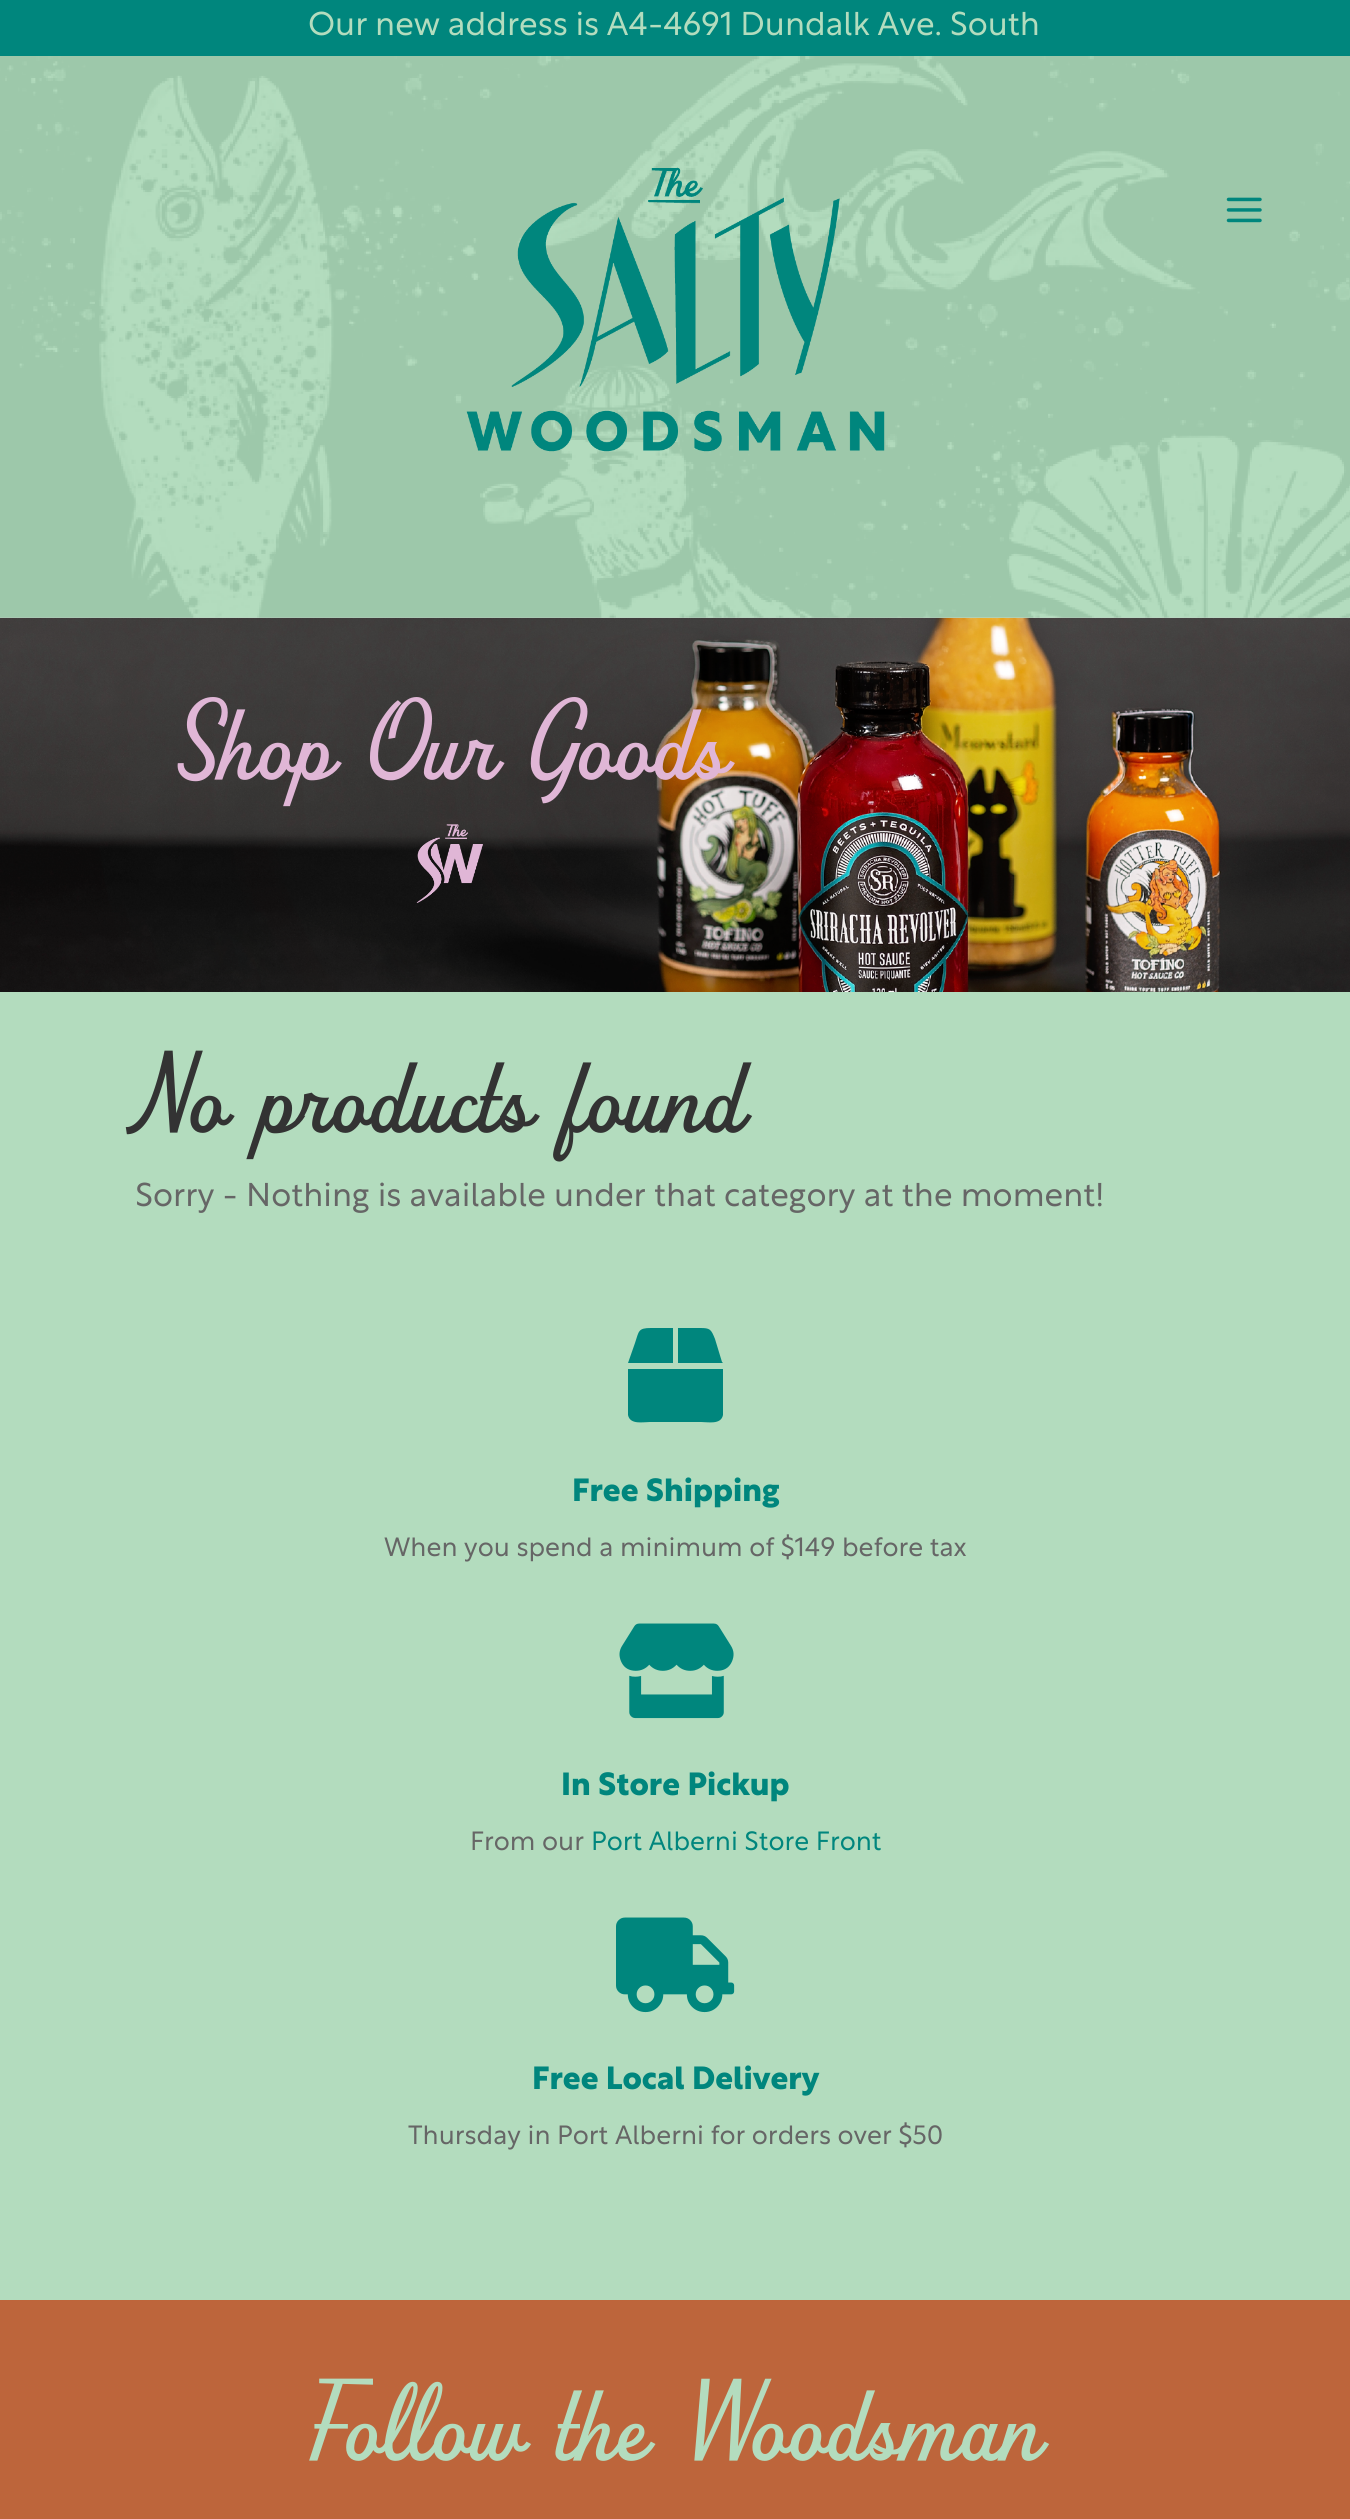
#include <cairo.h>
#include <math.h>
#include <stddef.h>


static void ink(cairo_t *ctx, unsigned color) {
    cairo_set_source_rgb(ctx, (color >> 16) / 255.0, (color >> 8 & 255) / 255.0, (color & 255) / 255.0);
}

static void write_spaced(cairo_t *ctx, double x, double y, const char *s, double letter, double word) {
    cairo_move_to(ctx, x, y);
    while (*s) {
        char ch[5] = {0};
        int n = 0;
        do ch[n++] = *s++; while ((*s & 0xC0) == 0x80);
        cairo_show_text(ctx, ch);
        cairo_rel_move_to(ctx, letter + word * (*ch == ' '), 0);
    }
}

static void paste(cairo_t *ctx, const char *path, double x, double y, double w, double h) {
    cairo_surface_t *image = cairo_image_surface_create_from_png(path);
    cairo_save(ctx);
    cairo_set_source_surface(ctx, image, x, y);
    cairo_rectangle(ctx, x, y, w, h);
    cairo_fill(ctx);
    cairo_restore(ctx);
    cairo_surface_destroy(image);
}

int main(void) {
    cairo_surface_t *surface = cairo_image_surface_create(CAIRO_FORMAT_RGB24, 1350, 2519);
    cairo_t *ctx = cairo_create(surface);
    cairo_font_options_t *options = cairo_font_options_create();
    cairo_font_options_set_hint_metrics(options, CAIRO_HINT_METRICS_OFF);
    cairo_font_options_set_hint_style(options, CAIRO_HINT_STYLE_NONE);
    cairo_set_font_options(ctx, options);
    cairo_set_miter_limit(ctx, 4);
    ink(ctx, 0xFFFFFF);
    cairo_paint(ctx);
    ink(ctx, 0x00867D);
    cairo_rectangle(ctx, 0, 0, 1350, 56);
    cairo_fill(ctx);
    cairo_select_font_face(ctx, "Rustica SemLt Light", CAIRO_FONT_SLANT_NORMAL, CAIRO_FONT_WEIGHT_NORMAL);
    cairo_set_font_size(ctx, 32.75);
    ink(ctx, 0xB3DCBE);
    write_spaced(ctx, 308, 35, "Our new address is A4-4691 Dundalk Ave. South", 0, -0.5);
    paste(ctx, "media/4.png", 0, 617, 1350, 375);
    paste(ctx, "media/1.png", 0, 56, 1350, 562);
    paste(ctx, "media/2.png", 466, 167, 419, 285);
    paste(ctx, "media/3.png", 1226, 197, 36, 26);
    cairo_select_font_face(ctx, "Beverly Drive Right", CAIRO_FONT_SLANT_NORMAL, CAIRO_FONT_WEIGHT_BOLD);
    cairo_set_font_size(ctx, 82.25);
    ink(ctx, 0xE0B6D6);
    write_spaced(ctx, 174, 779, "Shop Our Goods", -0.8, 0);
    paste(ctx, "media/5.png", 416, 824, 67, 79);
    ink(ctx, 0xB3DCBE);
    cairo_rectangle(ctx, 0, 992, 1350, 1308);
    cairo_fill(ctx);
    ink(ctx, 0x333333);
    write_spaced(ctx, 135, 1132, "No products found", -0.8, 0);
    cairo_select_font_face(ctx, "Rustica SemLt Light", CAIRO_FONT_SLANT_NORMAL, CAIRO_FONT_WEIGHT_NORMAL);
    cairo_set_font_size(ctx, 32.75);
    ink(ctx, 0x666666);
    cairo_move_to(ctx, 135, 1206);
    cairo_show_text(ctx, "Sorry - Nothing is available under that category at the moment!");
    ink(ctx, 0x00867D);
    cairo_new_path(ctx);
    cairo_move_to(ctx, 722, 1362);
    cairo_line_to(ctx, 723, 1363);
    cairo_line_to(ctx, 678, 1363);
    cairo_line_to(ctx, 678, 1328);
    cairo_line_to(ctx, 700, 1328);
    cairo_curve_to(ctx, 710, 1328, 711, 1329, 715, 1339);
    cairo_close_path(ctx);
    cairo_move_to(ctx, 673, 1328);
    cairo_line_to(ctx, 673, 1363);
    cairo_line_to(ctx, 628, 1363);
    cairo_line_to(ctx, 635, 1343);
    cairo_curve_to(ctx, 639, 1331, 638, 1328, 651, 1328);
    cairo_close_path(ctx);
    cairo_move_to(ctx, 628, 1369);
    cairo_line_to(ctx, 723, 1369);
    cairo_line_to(ctx, 723, 1415);
    cairo_curve_to(ctx, 721, 1425, 708, 1422, 701, 1422);
    cairo_line_to(ctx, 650, 1422);
    cairo_curve_to(ctx, 643, 1422, 630, 1425, 628, 1415);
    cairo_close_path(ctx);
    cairo_fill(ctx);
    cairo_select_font_face(ctx, "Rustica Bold", CAIRO_FONT_SLANT_NORMAL, CAIRO_FONT_WEIGHT_BOLD);
    cairo_set_font_size(ctx, 31.5);
    cairo_move_to(ctx, 572, 1501);
    cairo_show_text(ctx, "Free Shipping");
    cairo_select_font_face(ctx, "Rustica SemLt Light", CAIRO_FONT_SLANT_NORMAL, CAIRO_FONT_WEIGHT_NORMAL);
    cairo_set_font_size(ctx, 26.25);
    ink(ctx, 0x666666);
    cairo_move_to(ctx, 384, 1556);
    cairo_show_text(ctx, "When you spend a minimum of $149 before tax");
    paste(ctx, "media/6.png", 619, 1623, 115, 96);
    cairo_select_font_face(ctx, "Rustica Bold", CAIRO_FONT_SLANT_NORMAL, CAIRO_FONT_WEIGHT_BOLD);
    cairo_set_font_size(ctx, 31.5);
    ink(ctx, 0x00867D);
    cairo_move_to(ctx, 561, 1795);
    cairo_show_text(ctx, "In Store Pickup");
    cairo_select_font_face(ctx, "Rustica SemLt Light", CAIRO_FONT_SLANT_NORMAL, CAIRO_FONT_WEIGHT_NORMAL);
    cairo_set_font_size(ctx, 26.25);
    ink(ctx, 0x666666);
    cairo_move_to(ctx, 470, 1850);
    cairo_show_text(ctx, "From our");
    ink(ctx, 0x00867D);
    cairo_move_to(ctx, 591, 1850);
    cairo_show_text(ctx, "Port Alberni Store Front");
    paste(ctx, "media/7.png", 616, 1917, 119, 96);
    cairo_select_font_face(ctx, "Rustica Bold", CAIRO_FONT_SLANT_NORMAL, CAIRO_FONT_WEIGHT_BOLD);
    cairo_set_font_size(ctx, 31.5);
    cairo_move_to(ctx, 532, 2089);
    cairo_show_text(ctx, "Free Local Delivery");
    cairo_select_font_face(ctx, "Rustica SemLt Light", CAIRO_FONT_SLANT_NORMAL, CAIRO_FONT_WEIGHT_NORMAL);
    cairo_set_font_size(ctx, 26.25);
    ink(ctx, 0x666666);
    cairo_move_to(ctx, 408, 2144);
    cairo_show_text(ctx, "Thursday in Port Alberni for orders over $50");
    ink(ctx, 0xBD653B);
    cairo_rectangle(ctx, 0, 2300, 1350, 219);
    cairo_fill(ctx);
    cairo_select_font_face(ctx, "Beverly Drive Right", CAIRO_FONT_SLANT_NORMAL, CAIRO_FONT_WEIGHT_BOLD);
    cairo_set_font_size(ctx, 82.25);
    ink(ctx, 0xB3DCBE);
    write_spaced(ctx, 310, 2460, "Follow the Woodsman", -0.8, 0);
    cairo_surface_write_to_png(surface, "image.png");
    cairo_font_options_destroy(options);
    cairo_destroy(ctx);
    cairo_surface_destroy(surface);
    return 0;
}
